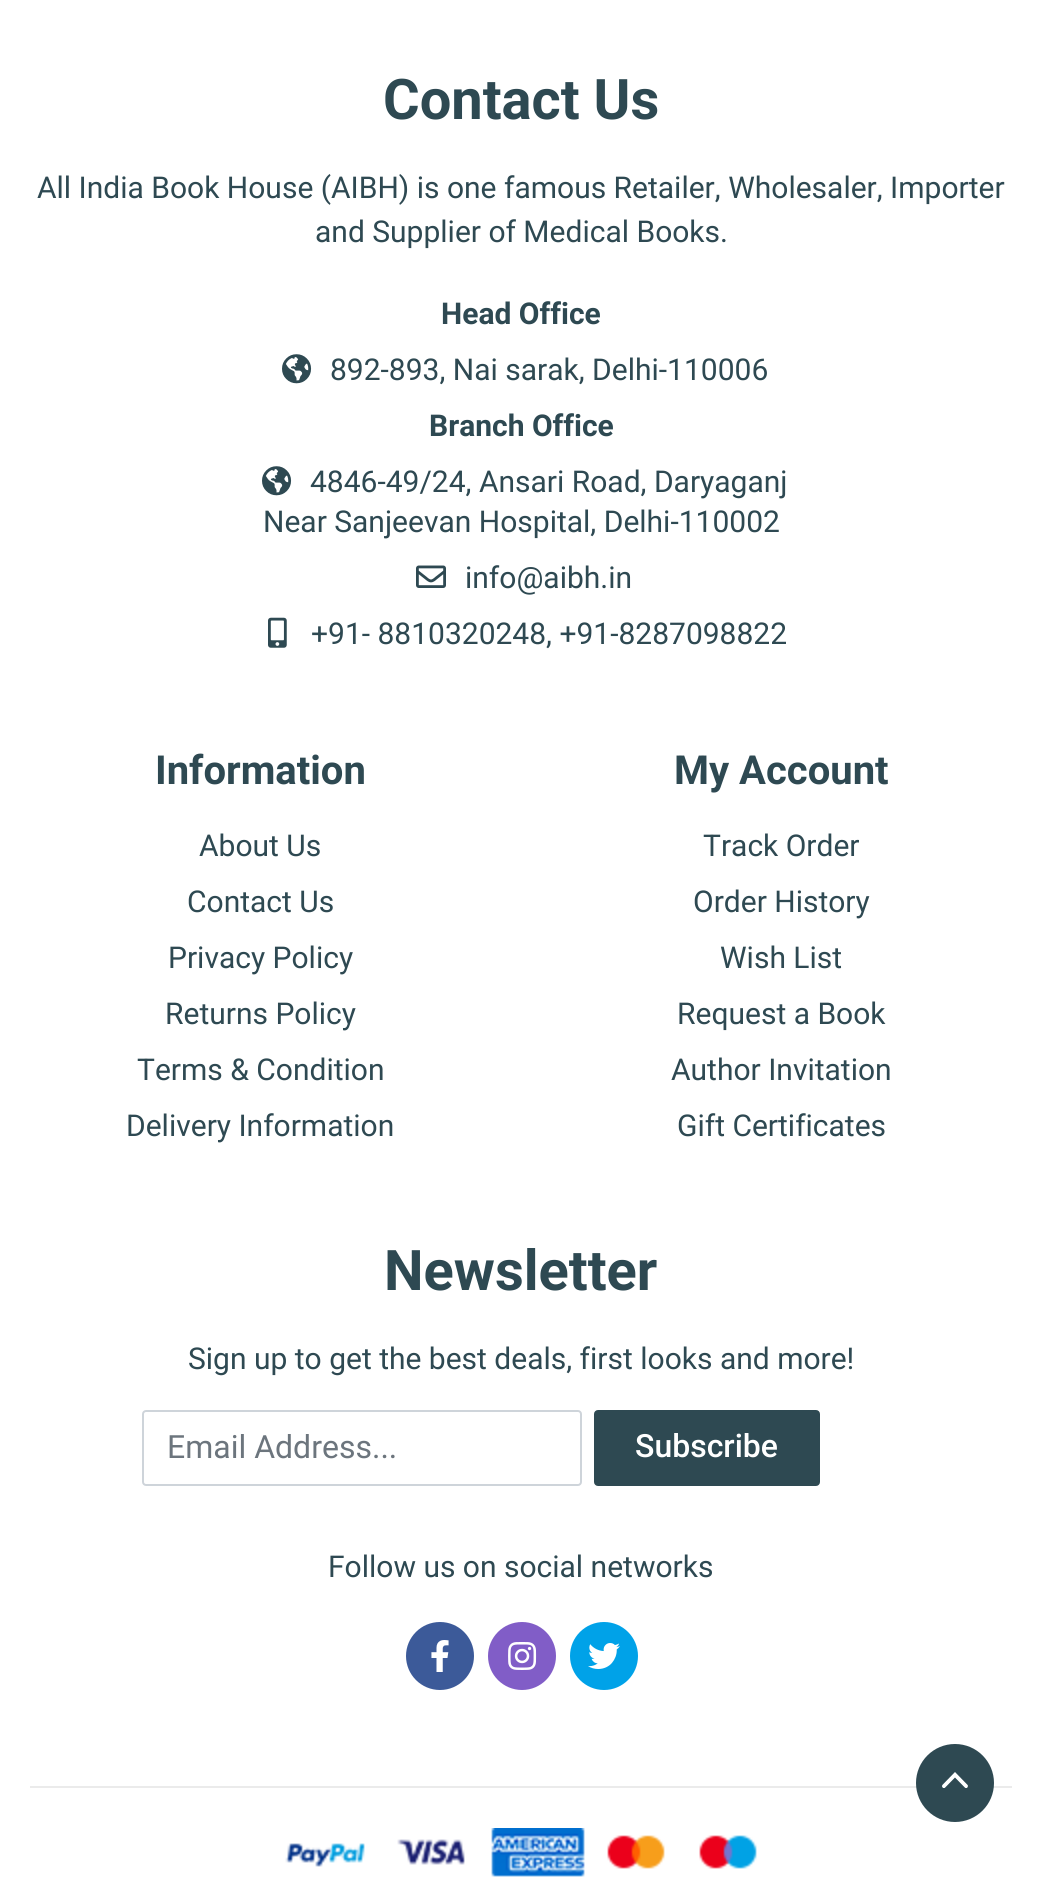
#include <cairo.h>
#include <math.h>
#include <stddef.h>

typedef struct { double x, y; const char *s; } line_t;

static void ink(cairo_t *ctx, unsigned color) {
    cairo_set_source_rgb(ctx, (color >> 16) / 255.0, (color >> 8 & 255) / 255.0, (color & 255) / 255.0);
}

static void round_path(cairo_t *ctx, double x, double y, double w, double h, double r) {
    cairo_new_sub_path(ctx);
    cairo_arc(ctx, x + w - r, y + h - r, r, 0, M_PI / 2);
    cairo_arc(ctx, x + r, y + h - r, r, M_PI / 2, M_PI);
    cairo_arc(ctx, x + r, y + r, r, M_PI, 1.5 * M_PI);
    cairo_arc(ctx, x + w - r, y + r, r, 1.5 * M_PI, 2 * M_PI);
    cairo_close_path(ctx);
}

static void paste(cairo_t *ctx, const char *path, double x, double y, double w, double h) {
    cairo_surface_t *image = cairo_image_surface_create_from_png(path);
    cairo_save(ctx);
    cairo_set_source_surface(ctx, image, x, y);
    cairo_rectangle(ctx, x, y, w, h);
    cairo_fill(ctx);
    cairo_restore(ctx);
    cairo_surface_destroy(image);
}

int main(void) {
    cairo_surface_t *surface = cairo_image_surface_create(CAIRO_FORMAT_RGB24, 1041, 1894);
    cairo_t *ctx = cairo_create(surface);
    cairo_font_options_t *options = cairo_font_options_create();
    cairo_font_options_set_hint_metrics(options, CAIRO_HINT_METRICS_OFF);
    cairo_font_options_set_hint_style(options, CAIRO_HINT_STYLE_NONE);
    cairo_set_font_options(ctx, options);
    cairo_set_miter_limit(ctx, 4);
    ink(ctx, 0xFFFFFF);
    cairo_paint(ctx);
    cairo_select_font_face(ctx, "Roboto", CAIRO_FONT_SLANT_NORMAL, CAIRO_FONT_WEIGHT_BOLD);
    cairo_set_font_size(ctx, 56);
    ink(ctx, 0x2E4952);
    cairo_move_to(ctx, 383, 119);
    cairo_show_text(ctx, "Contact Us");
    cairo_select_font_face(ctx, "Roboto", CAIRO_FONT_SLANT_NORMAL, CAIRO_FONT_WEIGHT_NORMAL);
    cairo_set_font_size(ctx, 30);
    cairo_move_to(ctx, 37, 198);
    cairo_show_text(ctx, "All India Book House (AIBH) is one famous Retailer, Wholesaler, Importer");
    cairo_move_to(ctx, 315, 242);
    cairo_show_text(ctx, "and Supplier of Medical Books.");
    cairo_select_font_face(ctx, "Roboto", CAIRO_FONT_SLANT_NORMAL, CAIRO_FONT_WEIGHT_BOLD);
    cairo_move_to(ctx, 441, 324);
    cairo_show_text(ctx, "Head Office");
    paste(ctx, "media/1.png", 282, 354, 30, 30);
    cairo_select_font_face(ctx, "Roboto", CAIRO_FONT_SLANT_NORMAL, CAIRO_FONT_WEIGHT_NORMAL);
    cairo_move_to(ctx, 330, 380);
    cairo_show_text(ctx, "892-893, Nai sarak, Delhi-110006");
    cairo_select_font_face(ctx, "Roboto", CAIRO_FONT_SLANT_NORMAL, CAIRO_FONT_WEIGHT_BOLD);
    cairo_move_to(ctx, 429, 436);
    cairo_show_text(ctx, "Branch Office");
    paste(ctx, "media/1.png", 262, 466, 30, 30);
    cairo_select_font_face(ctx, "Roboto", CAIRO_FONT_SLANT_NORMAL, CAIRO_FONT_WEIGHT_NORMAL);
    cairo_move_to(ctx, 310, 492);
    cairo_show_text(ctx, "4846-49/24, Ansari Road, Daryaganj");
    cairo_move_to(ctx, 263, 532);
    cairo_show_text(ctx, "Near Sanjeevan Hospital, Delhi-110002");
    paste(ctx, "media/2.png", 416, 565, 30, 23);
    cairo_move_to(ctx, 465, 588);
    cairo_show_text(ctx, "info@aibh.in");
    paste(ctx, "media/3.png", 268, 617, 19, 31);
    cairo_move_to(ctx, 311, 644);
    cairo_show_text(ctx, "+91- 8810320248, +91-8287098822");
    cairo_select_font_face(ctx, "Roboto", CAIRO_FONT_SLANT_NORMAL, CAIRO_FONT_WEIGHT_BOLD);
    cairo_set_font_size(ctx, 40);
    cairo_move_to(ctx, 155, 784);
    cairo_show_text(ctx, "Information");
    cairo_select_font_face(ctx, "Roboto", CAIRO_FONT_SLANT_NORMAL, CAIRO_FONT_WEIGHT_NORMAL);
    cairo_set_font_size(ctx, 30);
    {
        static const line_t items[] = {
            {199, 856, "About Us"},
            {187, 912, "Contact Us"},
            {168, 968, "Privacy Policy"},
            {165, 1024, "Returns Policy"},
            {137, 1080, "Terms & Condition"},
            {126, 1136, "Delivery Information"},
        };
        for (size_t i = 0; i < sizeof items / sizeof *items; i++) {
            cairo_move_to(ctx, items[i].x, items[i].y);
            cairo_show_text(ctx, items[i].s);
        }
    }
    cairo_select_font_face(ctx, "Roboto", CAIRO_FONT_SLANT_NORMAL, CAIRO_FONT_WEIGHT_BOLD);
    cairo_set_font_size(ctx, 40);
    cairo_move_to(ctx, 674, 784);
    cairo_show_text(ctx, "My Account");
    cairo_select_font_face(ctx, "Roboto", CAIRO_FONT_SLANT_NORMAL, CAIRO_FONT_WEIGHT_NORMAL);
    cairo_set_font_size(ctx, 30);
    {
        static const line_t items[] = {
            {703, 856, "Track Order"},
            {693, 912, "Order History"},
            {720, 968, "Wish List"},
            {677, 1024, "Request a Book"},
            {671, 1080, "Author Invitation"},
            {677, 1136, "Gift Certificates"},
        };
        for (size_t i = 0; i < sizeof items / sizeof *items; i++) {
            cairo_move_to(ctx, items[i].x, items[i].y);
            cairo_show_text(ctx, items[i].s);
        }
    }
    cairo_select_font_face(ctx, "Roboto", CAIRO_FONT_SLANT_NORMAL, CAIRO_FONT_WEIGHT_BOLD);
    cairo_set_font_size(ctx, 56);
    cairo_move_to(ctx, 384, 1290);
    cairo_show_text(ctx, "Newsletter");
    cairo_select_font_face(ctx, "Roboto", CAIRO_FONT_SLANT_NORMAL, CAIRO_FONT_WEIGHT_NORMAL);
    cairo_set_font_size(ctx, 30);
    cairo_move_to(ctx, 188, 1369);
    cairo_show_text(ctx, "Sign up to get the best deals, first looks and more!");
    round_path(ctx, 143, 1411, 438, 74, 3);
    ink(ctx, 0xCED4DA);
    cairo_stroke(ctx);
    cairo_set_font_size(ctx, 32);
    ink(ctx, 0x6C757D);
    cairo_move_to(ctx, 167, 1458);
    cairo_show_text(ctx, "Email Address...");
    ink(ctx, 0x2E4952);
    round_path(ctx, 595, 1411, 224, 74, 3);
    cairo_fill_preserve(ctx);
    cairo_stroke(ctx);
    cairo_select_font_face(ctx, "Roboto Medium", CAIRO_FONT_SLANT_NORMAL, CAIRO_FONT_WEIGHT_NORMAL);
    ink(ctx, 0xFFFFFF);
    cairo_move_to(ctx, 635, 1457);
    cairo_show_text(ctx, "Subscribe");
    cairo_select_font_face(ctx, "Roboto", CAIRO_FONT_SLANT_NORMAL, CAIRO_FONT_WEIGHT_NORMAL);
    cairo_set_font_size(ctx, 30);
    ink(ctx, 0x2E4952);
    cairo_move_to(ctx, 328, 1577);
    cairo_show_text(ctx, "Follow us on social networks");
    ink(ctx, 0x3C5A99);
    cairo_new_path(ctx);
    cairo_arc(ctx, 440, 1656, 34, 0, 2 * M_PI);
    cairo_fill(ctx);
    paste(ctx, "media/4.png", 431, 1640, 18, 32);
    ink(ctx, 0x815DC7);
    cairo_arc(ctx, 522, 1656, 34, 0, 2 * M_PI);
    cairo_fill(ctx);
    paste(ctx, "media/5.png", 508, 1642, 29, 28);
    ink(ctx, 0x00A2E8);
    cairo_arc(ctx, 604, 1656, 34, 0, 2 * M_PI);
    cairo_fill(ctx);
    paste(ctx, "media/6.png", 588, 1643, 32, 26);
    ink(ctx, 0xEBEBEB);
    cairo_rectangle(ctx, 30, 1786, 982, 2);
    cairo_fill(ctx);
    paste(ctx, "media/7.png", 285, 1828, 472, 49);
    ink(ctx, 0x2E4952);
    cairo_arc(ctx, 955, 1783, 39, 0, 2 * M_PI);
    cairo_fill(ctx);
    paste(ctx, "media/8.png", 942, 1772, 26, 16);
    cairo_surface_write_to_png(surface, "image.png");
    cairo_font_options_destroy(options);
    cairo_destroy(ctx);
    cairo_surface_destroy(surface);
    return 0;
}
